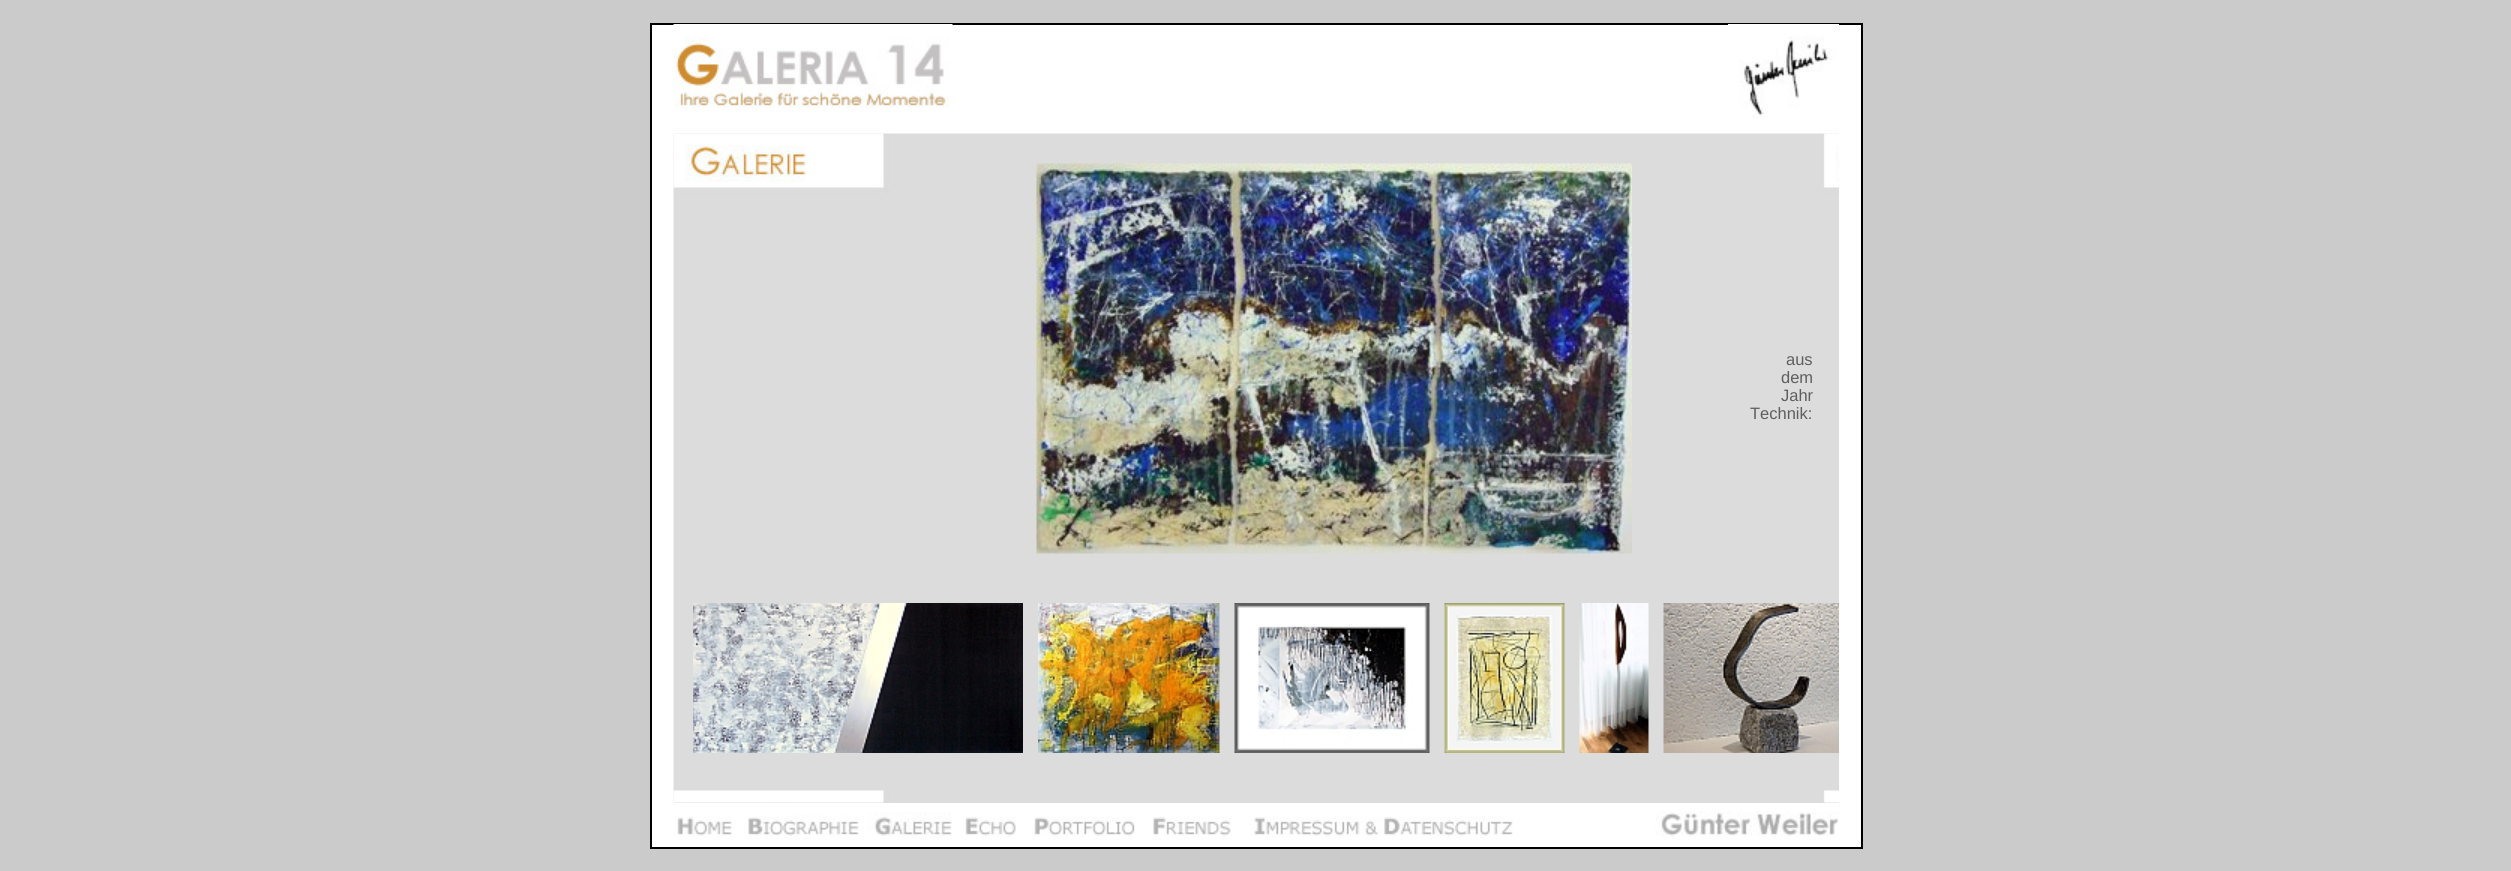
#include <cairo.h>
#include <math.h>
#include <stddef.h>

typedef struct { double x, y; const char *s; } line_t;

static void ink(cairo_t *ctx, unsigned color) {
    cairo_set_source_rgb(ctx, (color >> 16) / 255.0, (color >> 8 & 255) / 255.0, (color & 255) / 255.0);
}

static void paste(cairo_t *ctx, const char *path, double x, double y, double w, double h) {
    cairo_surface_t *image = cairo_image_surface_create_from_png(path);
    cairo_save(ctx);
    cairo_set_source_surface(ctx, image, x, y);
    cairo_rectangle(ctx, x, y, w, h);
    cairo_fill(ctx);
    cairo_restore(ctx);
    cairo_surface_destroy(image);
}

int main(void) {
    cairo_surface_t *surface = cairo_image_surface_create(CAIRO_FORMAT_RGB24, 2511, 871);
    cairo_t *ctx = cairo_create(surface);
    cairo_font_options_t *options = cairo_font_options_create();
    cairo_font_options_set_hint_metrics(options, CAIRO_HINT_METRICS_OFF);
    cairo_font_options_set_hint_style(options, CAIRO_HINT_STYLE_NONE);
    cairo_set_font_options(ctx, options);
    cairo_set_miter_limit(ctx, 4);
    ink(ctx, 0xCBCBCB);
    cairo_paint(ctx);
    ink(ctx, 0xFFFFFF);
    cairo_rectangle(ctx, 651, 24, 1211, 824);
    cairo_fill_preserve(ctx);
    ink(ctx, 0x000000);
    cairo_stroke(ctx);
    paste(ctx, "media/1.png", 673, 24, 280, 84);
    paste(ctx, "media/2.png", 1728, 24, 111, 95);
    ink(ctx, 0xDCDCDC);
    cairo_rectangle(ctx, 674, 802, 1165, 1);
    cairo_fill(ctx);
    paste(ctx, "media/3.png", 673, 133, 1166, 670);
    paste(ctx, "media/4.png", 1036, 163, 596, 391);
    cairo_select_font_face(ctx, "Liberation Sans", CAIRO_FONT_SLANT_NORMAL, CAIRO_FONT_WEIGHT_NORMAL);
    cairo_set_font_size(ctx, 16.5);
    ink(ctx, 0x5E5E5E);
    {
        static const line_t items[] = {
            {1786, 365, "aus"},
            {1781, 383, "dem"},
            {1781, 401, "Jahr"},
            {1750, 419, "Technik:"},
        };
        for (size_t i = 0; i < sizeof items / sizeof *items; i++) {
            cairo_move_to(ctx, items[i].x, items[i].y);
            cairo_show_text(ctx, items[i].s);
        }
    }
    paste(ctx, "media/5.png", 693, 603, 330, 150);
    paste(ctx, "media/6.png", 1038, 603, 182, 150);
    paste(ctx, "media/7.png", 1234, 603, 196, 150);
    paste(ctx, "media/8.png", 1444, 603, 121, 150);
    paste(ctx, "media/9.png", 1579, 603, 70, 150);
    paste(ctx, "media/10.png", 1663, 603, 176, 150);
    paste(ctx, "media/11.png", 677, 817, 56, 19);
    paste(ctx, "media/12.png", 748, 815, 111, 21);
    paste(ctx, "media/13.png", 867, 812, 85, 24);
    paste(ctx, "media/14.png", 965, 817, 51, 19);
    paste(ctx, "media/15.png", 1034, 817, 101, 19);
    paste(ctx, "media/16.png", 1153, 817, 78, 19);
    paste(ctx, "media/17.png", 1254, 817, 259, 19);
    paste(ctx, "media/18.png", 1655, 811, 184, 25);
    cairo_surface_write_to_png(surface, "image.png");
    cairo_font_options_destroy(options);
    cairo_destroy(ctx);
    cairo_surface_destroy(surface);
    return 0;
}
